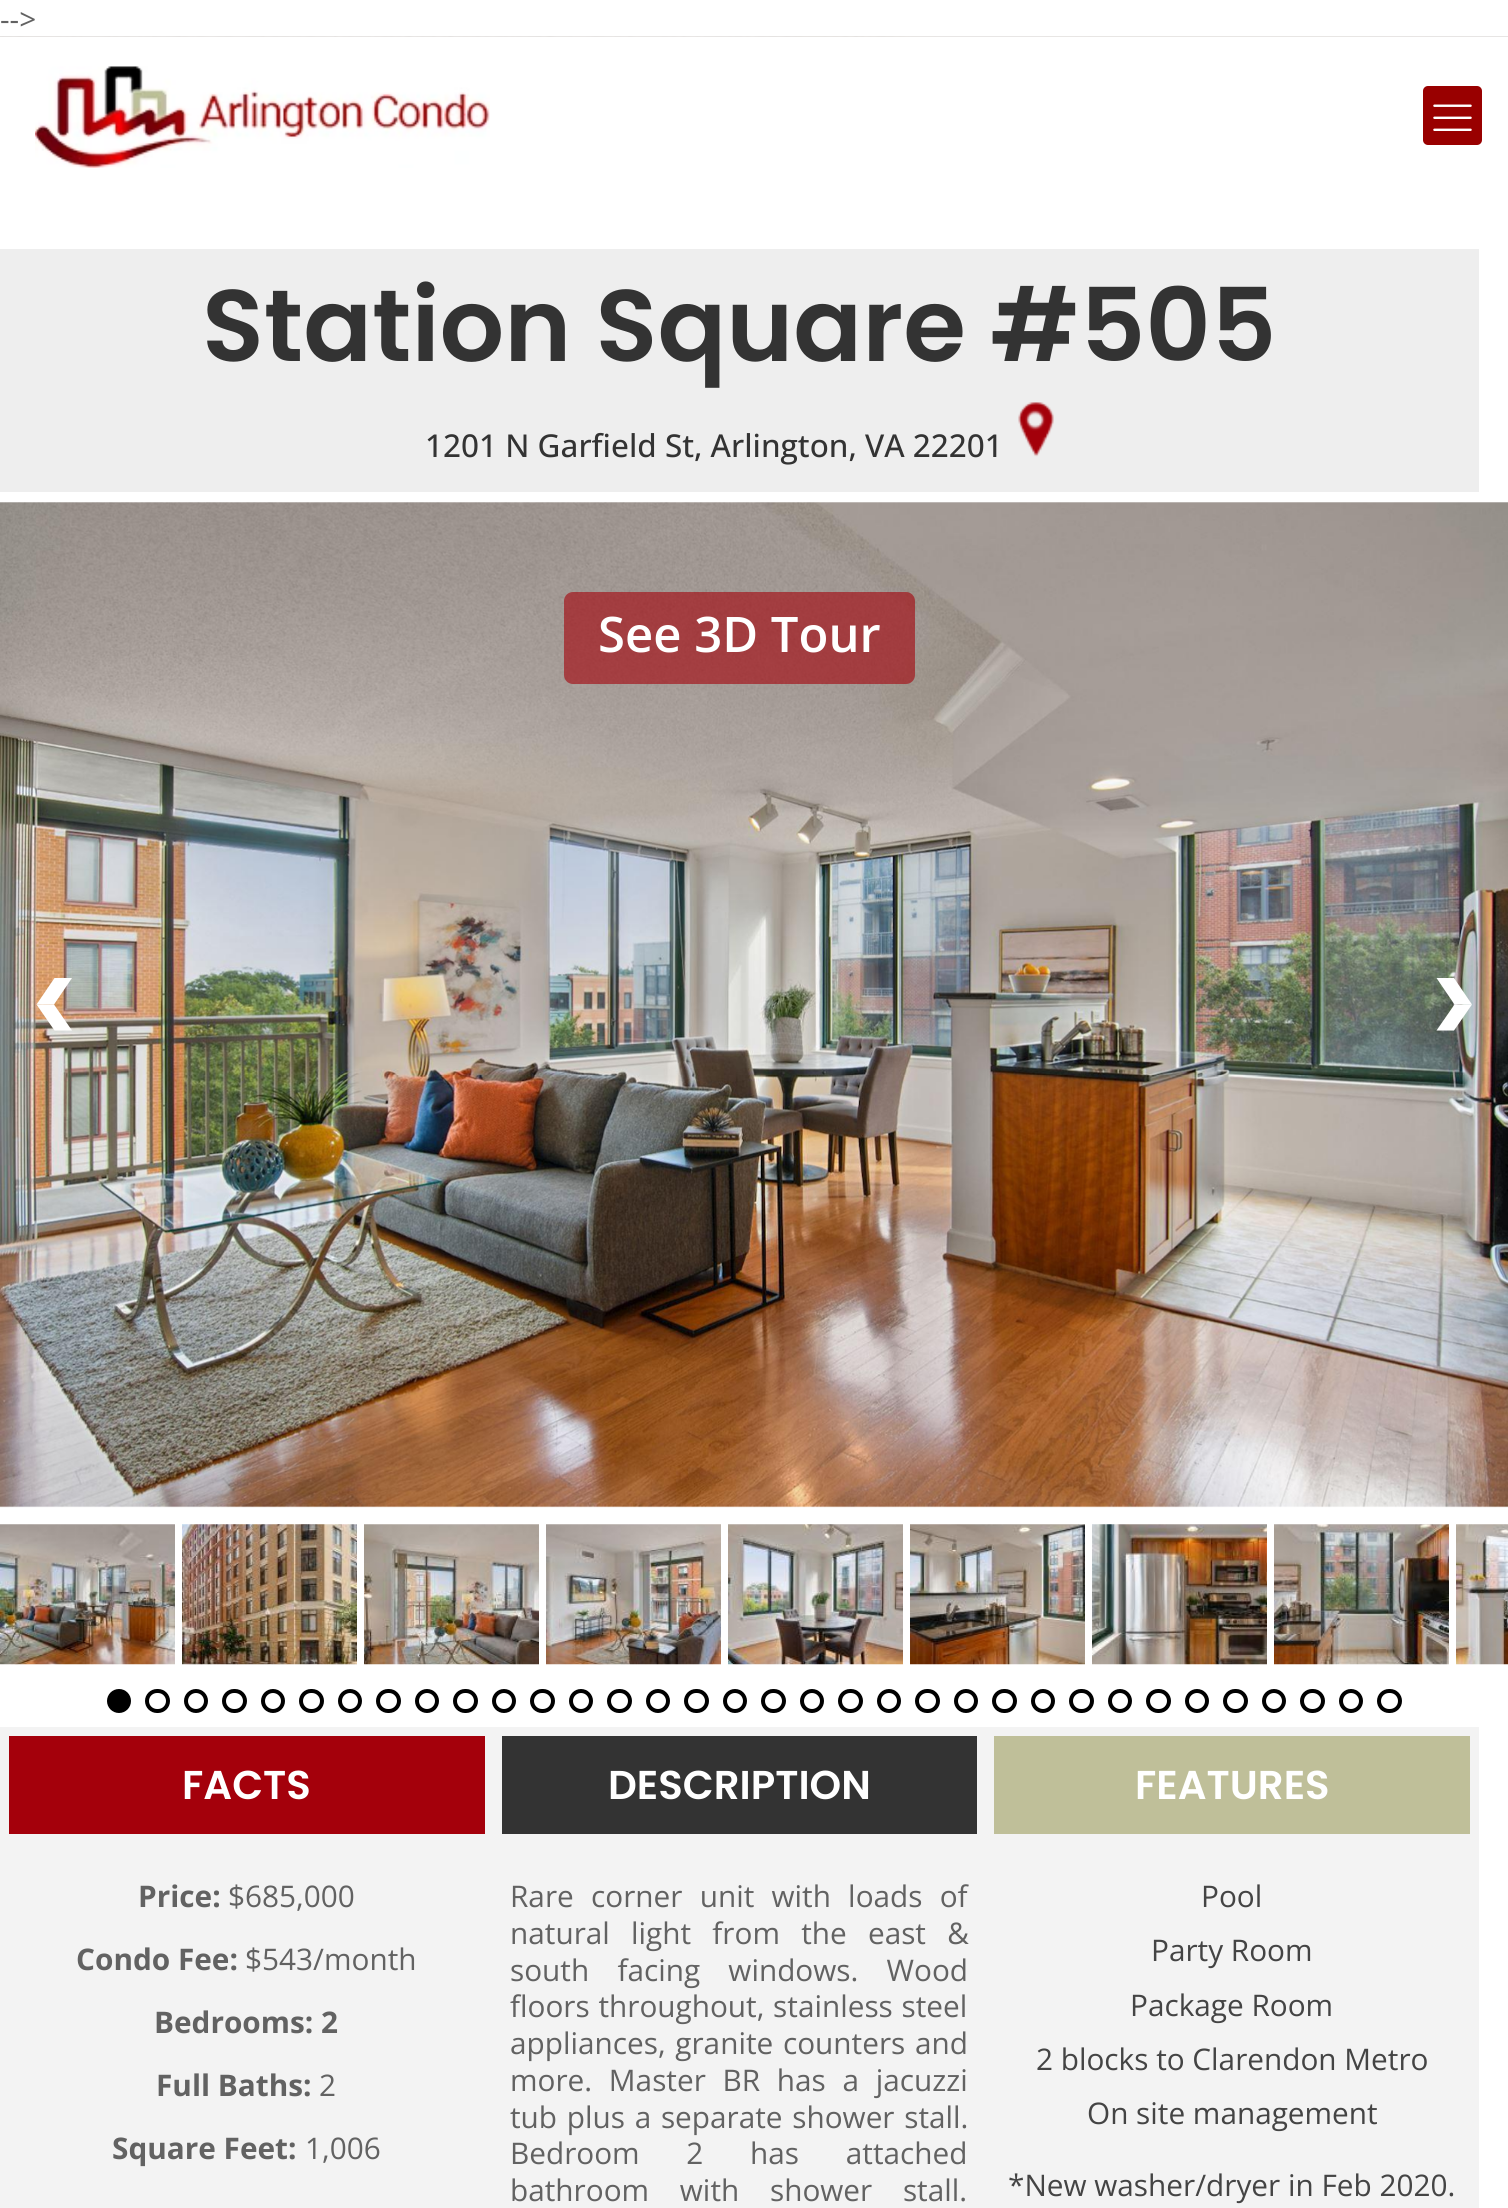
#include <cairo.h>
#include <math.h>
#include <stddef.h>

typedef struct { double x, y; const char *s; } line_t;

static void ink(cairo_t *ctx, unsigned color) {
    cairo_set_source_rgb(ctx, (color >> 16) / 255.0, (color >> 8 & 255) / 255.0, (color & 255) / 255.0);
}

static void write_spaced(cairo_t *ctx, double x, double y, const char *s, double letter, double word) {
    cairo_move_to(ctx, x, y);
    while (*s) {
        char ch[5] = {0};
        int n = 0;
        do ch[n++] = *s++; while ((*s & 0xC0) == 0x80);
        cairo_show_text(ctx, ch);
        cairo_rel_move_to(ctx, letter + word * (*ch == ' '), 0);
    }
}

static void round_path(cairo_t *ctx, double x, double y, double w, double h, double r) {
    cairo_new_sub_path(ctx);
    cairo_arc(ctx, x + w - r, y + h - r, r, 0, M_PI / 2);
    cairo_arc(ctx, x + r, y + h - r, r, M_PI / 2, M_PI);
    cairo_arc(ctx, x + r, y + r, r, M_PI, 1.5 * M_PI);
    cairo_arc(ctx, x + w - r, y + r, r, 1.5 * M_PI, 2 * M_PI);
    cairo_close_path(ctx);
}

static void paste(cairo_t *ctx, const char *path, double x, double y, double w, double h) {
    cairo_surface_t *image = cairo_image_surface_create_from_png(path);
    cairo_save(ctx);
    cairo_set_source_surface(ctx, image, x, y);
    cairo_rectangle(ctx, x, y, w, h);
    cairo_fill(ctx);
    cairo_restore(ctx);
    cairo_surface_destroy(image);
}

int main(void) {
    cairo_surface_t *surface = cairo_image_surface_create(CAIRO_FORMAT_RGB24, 1508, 2208);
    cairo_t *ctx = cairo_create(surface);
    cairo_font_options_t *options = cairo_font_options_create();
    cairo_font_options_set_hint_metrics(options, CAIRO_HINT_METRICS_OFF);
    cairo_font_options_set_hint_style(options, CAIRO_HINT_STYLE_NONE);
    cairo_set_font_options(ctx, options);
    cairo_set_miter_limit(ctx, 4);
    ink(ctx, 0xFFFFFF);
    cairo_paint(ctx);
    cairo_select_font_face(ctx, "Open Sans", CAIRO_FONT_SLANT_NORMAL, CAIRO_FONT_WEIGHT_NORMAL);
    cairo_set_font_size(ctx, 29.75);
    ink(ctx, 0x626262);
    cairo_move_to(ctx, 0, 30);
    cairo_show_text(ctx, "-->");
    paste(ctx, "media/1.png", 0, 36, 1508, 1);
    paste(ctx, "media/2.png", 35, 66, 455, 102);
    ink(ctx, 0x990000);
    round_path(ctx, 1423, 86, 59, 59, 5);
    cairo_fill(ctx);
    paste(ctx, "media/3.png", 1433, 104, 39, 27);
    ink(ctx, 0xEEEEEE);
    cairo_rectangle(ctx, 0, 249, 1479, 243);
    cairo_fill(ctx);
    cairo_select_font_face(ctx, "Poppins SemiBold", CAIRO_FONT_SLANT_NORMAL, CAIRO_FONT_WEIGHT_NORMAL);
    cairo_set_font_size(ctx, 101.5);
    ink(ctx, 0x333333);
    cairo_move_to(ctx, 202, 361);
    cairo_show_text(ctx, "Station Square #505");
    cairo_select_font_face(ctx, "Open Sans Medium", CAIRO_FONT_SLANT_NORMAL, CAIRO_FONT_WEIGHT_NORMAL);
    cairo_set_font_size(ctx, 31.5);
    cairo_move_to(ctx, 425, 457);
    cairo_show_text(ctx, "1201 N Garfield St, Arlington, VA 22201");
    paste(ctx, "media/4.png", 1018, 402, 36, 55);
    paste(ctx, "media/5.png", 0, 502, 1508, 1006);
    ink(ctx, 0xFFFFFF);
    cairo_new_path(ctx);
    cairo_move_to(ctx, 54.5, 978);
    cairo_line_to(ctx, 72, 978);
    cairo_line_to(ctx, 54, 1004.5);
    cairo_line_to(ctx, 36.5, 1004.5);
    cairo_close_path(ctx);
    cairo_fill(ctx);
    cairo_new_path(ctx);
    cairo_move_to(ctx, 36.5, 1004.5);
    cairo_line_to(ctx, 54, 1004.5);
    cairo_line_to(ctx, 72, 1030.5);
    cairo_line_to(ctx, 54.5, 1030.5);
    cairo_close_path(ctx);
    cairo_fill(ctx);
    cairo_new_path(ctx);
    cairo_move_to(ctx, 1454, 1030.5);
    cairo_line_to(ctx, 1436.5, 1030.5);
    cairo_line_to(ctx, 1454.5, 1004.5);
    cairo_line_to(ctx, 1472, 1004.5);
    cairo_close_path(ctx);
    cairo_fill(ctx);
    cairo_new_path(ctx);
    cairo_move_to(ctx, 1472, 1004.5);
    cairo_line_to(ctx, 1454.5, 1004.5);
    cairo_line_to(ctx, 1436.5, 978);
    cairo_line_to(ctx, 1454, 978);
    cairo_close_path(ctx);
    cairo_fill(ctx);
    paste(ctx, "media/6.png", 0, 1524, 175, 141);
    paste(ctx, "media/7.png", 182, 1524, 175, 141);
    paste(ctx, "media/8.png", 364, 1524, 175, 141);
    paste(ctx, "media/9.png", 546, 1524, 175, 141);
    paste(ctx, "media/10.png", 728, 1524, 175, 141);
    paste(ctx, "media/11.png", 910, 1524, 175, 141);
    paste(ctx, "media/12.png", 1092, 1524, 175, 141);
    paste(ctx, "media/13.png", 1274, 1524, 175, 141);
    paste(ctx, "media/14.png", 1456, 1524, 52, 141);
    ink(ctx, 0x000000);
    cairo_arc(ctx, 119, 1701, 10, 0, 2 * M_PI);
    cairo_fill_preserve(ctx);
    cairo_set_line_width(ctx, 4);
    cairo_stroke(ctx);
    round_path(ctx, 147, 1691, 21, 20, 10);
    cairo_stroke(ctx);
    cairo_arc(ctx, 196, 1701, 10, 0, 2 * M_PI);
    cairo_stroke(ctx);
    round_path(ctx, 224, 1691, 21, 20, 10);
    cairo_stroke(ctx);
    cairo_arc(ctx, 273, 1701, 10, 0, 2 * M_PI);
    cairo_stroke(ctx);
    round_path(ctx, 301, 1691, 21, 20, 10);
    cairo_stroke(ctx);
    cairo_arc(ctx, 350, 1701, 10, 0, 2 * M_PI);
    cairo_stroke(ctx);
    round_path(ctx, 378, 1691, 21, 20, 10);
    cairo_stroke(ctx);
    cairo_arc(ctx, 427, 1701, 10, 0, 2 * M_PI);
    cairo_stroke(ctx);
    round_path(ctx, 455, 1691, 21, 20, 10);
    cairo_stroke(ctx);
    cairo_arc(ctx, 504, 1701, 10, 0, 2 * M_PI);
    cairo_stroke(ctx);
    round_path(ctx, 532, 1691, 21, 20, 10);
    cairo_stroke(ctx);
    cairo_arc(ctx, 581, 1701, 10, 0, 2 * M_PI);
    cairo_stroke(ctx);
    round_path(ctx, 609, 1691, 21, 20, 10);
    cairo_stroke(ctx);
    cairo_arc(ctx, 658, 1701, 10, 0, 2 * M_PI);
    cairo_stroke(ctx);
    round_path(ctx, 686, 1691, 21, 20, 10);
    cairo_stroke(ctx);
    cairo_arc(ctx, 735, 1701, 10, 0, 2 * M_PI);
    cairo_stroke(ctx);
    round_path(ctx, 763, 1691, 21, 20, 10);
    cairo_stroke(ctx);
    cairo_arc(ctx, 812, 1701, 10, 0, 2 * M_PI);
    cairo_stroke(ctx);
    round_path(ctx, 840, 1691, 21, 20, 10);
    cairo_stroke(ctx);
    cairo_arc(ctx, 889, 1701, 10, 0, 2 * M_PI);
    cairo_stroke(ctx);
    round_path(ctx, 917, 1691, 21, 20, 10);
    cairo_stroke(ctx);
    cairo_arc(ctx, 966, 1701, 10, 0, 2 * M_PI);
    cairo_stroke(ctx);
    round_path(ctx, 994, 1691, 21, 20, 10);
    cairo_stroke(ctx);
    cairo_arc(ctx, 1043, 1701, 10, 0, 2 * M_PI);
    cairo_stroke(ctx);
    round_path(ctx, 1071, 1691, 21, 20, 10);
    cairo_stroke(ctx);
    cairo_arc(ctx, 1120, 1701, 10, 0, 2 * M_PI);
    cairo_stroke(ctx);
    round_path(ctx, 1148, 1691, 21, 20, 10);
    cairo_stroke(ctx);
    cairo_arc(ctx, 1197, 1701, 10, 0, 2 * M_PI);
    cairo_stroke(ctx);
    round_path(ctx, 1225, 1691, 21, 20, 10);
    cairo_stroke(ctx);
    cairo_arc(ctx, 1274, 1701, 10, 0, 2 * M_PI);
    cairo_stroke(ctx);
    round_path(ctx, 1302, 1691, 21, 20, 10);
    cairo_stroke(ctx);
    cairo_arc(ctx, 1351, 1701, 10, 0, 2 * M_PI);
    cairo_stroke(ctx);
    round_path(ctx, 1379, 1691, 21, 20, 10);
    cairo_stroke(ctx);
    cairo_set_source_rgba(ctx, 0.639, 0, 0.039, 0.6);
    round_path(ctx, 564, 592, 351, 92, 9);
    cairo_fill(ctx);
    cairo_select_font_face(ctx, "Open Sans SemiBold", CAIRO_FONT_SLANT_NORMAL, CAIRO_FONT_WEIGHT_NORMAL);
    cairo_set_font_size(ctx, 49);
    ink(ctx, 0xFFFFFF);
    cairo_move_to(ctx, 598, 652);
    cairo_show_text(ctx, "See 3D Tour");
    ink(ctx, 0xF3F3F3);
    cairo_rectangle(ctx, 0, 1727, 1479, 481);
    cairo_fill(ctx);
    ink(ctx, 0xA4000B);
    cairo_rectangle(ctx, 9, 1736, 476, 98);
    cairo_fill(ctx);
    cairo_select_font_face(ctx, "Poppins SemiBold", CAIRO_FONT_SLANT_NORMAL, CAIRO_FONT_WEIGHT_NORMAL);
    cairo_set_font_size(ctx, 40.25);
    ink(ctx, 0xFFFFFF);
    cairo_move_to(ctx, 182, 1799);
    cairo_show_text(ctx, "FACTS");
    cairo_select_font_face(ctx, "Open Sans", CAIRO_FONT_SLANT_NORMAL, CAIRO_FONT_WEIGHT_BOLD);
    cairo_set_font_size(ctx, 29.75);
    ink(ctx, 0x626262);
    cairo_move_to(ctx, 138, 1907);
    cairo_show_text(ctx, "Price:");
    cairo_select_font_face(ctx, "Open Sans", CAIRO_FONT_SLANT_NORMAL, CAIRO_FONT_WEIGHT_NORMAL);
    cairo_move_to(ctx, 228, 1907);
    cairo_show_text(ctx, "$685,000");
    cairo_select_font_face(ctx, "Open Sans", CAIRO_FONT_SLANT_NORMAL, CAIRO_FONT_WEIGHT_BOLD);
    cairo_move_to(ctx, 76, 1970);
    cairo_show_text(ctx, "Condo Fee:");
    cairo_select_font_face(ctx, "Open Sans", CAIRO_FONT_SLANT_NORMAL, CAIRO_FONT_WEIGHT_NORMAL);
    cairo_move_to(ctx, 245, 1970);
    cairo_show_text(ctx, "$543/month");
    cairo_select_font_face(ctx, "Open Sans", CAIRO_FONT_SLANT_NORMAL, CAIRO_FONT_WEIGHT_BOLD);
    cairo_move_to(ctx, 154, 2033);
    cairo_show_text(ctx, "Bedrooms: 2");
    cairo_move_to(ctx, 156, 2096);
    cairo_show_text(ctx, "Full Baths:");
    cairo_select_font_face(ctx, "Open Sans", CAIRO_FONT_SLANT_NORMAL, CAIRO_FONT_WEIGHT_NORMAL);
    cairo_move_to(ctx, 319, 2096);
    cairo_show_text(ctx, "2");
    cairo_select_font_face(ctx, "Open Sans", CAIRO_FONT_SLANT_NORMAL, CAIRO_FONT_WEIGHT_BOLD);
    cairo_move_to(ctx, 112, 2159);
    cairo_show_text(ctx, "Square Feet:");
    cairo_select_font_face(ctx, "Open Sans", CAIRO_FONT_SLANT_NORMAL, CAIRO_FONT_WEIGHT_NORMAL);
    cairo_move_to(ctx, 305, 2159);
    cairo_show_text(ctx, "1,006");
    ink(ctx, 0x333333);
    cairo_rectangle(ctx, 502, 1736, 475, 98);
    cairo_fill(ctx);
    cairo_select_font_face(ctx, "Poppins SemiBold", CAIRO_FONT_SLANT_NORMAL, CAIRO_FONT_WEIGHT_NORMAL);
    cairo_set_font_size(ctx, 40.25);
    ink(ctx, 0xFFFFFF);
    cairo_move_to(ctx, 608, 1799);
    cairo_show_text(ctx, "DESCRIPTION");
    cairo_select_font_face(ctx, "Open Sans", CAIRO_FONT_SLANT_NORMAL, CAIRO_FONT_WEIGHT_NORMAL);
    cairo_set_font_size(ctx, 29.75);
    ink(ctx, 0x626262);
    write_spaced(ctx, 510, 1907, "Rare corner unit with loads of", 0, 9.5);
    write_spaced(ctx, 510, 1944, "natural light from the east &", 0, 13.5);
    write_spaced(ctx, 510, 1981, "south facing windows. Wood", 0, 20.5);
    write_spaced(ctx, 510, 2017, "floors throughout, stainless steel", 0, 1);
    write_spaced(ctx, 510, 2054, "appliances, granite counters and", 0, 2);
    write_spaced(ctx, 510, 2091, "more. Master BR has a jacuzzi", 0, 9);
    write_spaced(ctx, 510, 2128, "tub plus a separate shower stall.", 0, 2);
    write_spaced(ctx, 510, 2164, "Bedroom 2 has attached", 0, 39);
    write_spaced(ctx, 510, 2201, "bathroom with shower stall.", 0, 23);
    ink(ctx, 0xBFBF99);
    cairo_rectangle(ctx, 994, 1736, 476, 98);
    cairo_fill(ctx);
    cairo_select_font_face(ctx, "Poppins SemiBold", CAIRO_FONT_SLANT_NORMAL, CAIRO_FONT_WEIGHT_NORMAL);
    cairo_set_font_size(ctx, 40.25);
    ink(ctx, 0xFFFFFF);
    cairo_move_to(ctx, 1135, 1799);
    cairo_show_text(ctx, "FEATURES");
    cairo_select_font_face(ctx, "Open Sans", CAIRO_FONT_SLANT_NORMAL, CAIRO_FONT_WEIGHT_NORMAL);
    cairo_set_font_size(ctx, 29.75);
    ink(ctx, 0x444444);
    {
        static const line_t items[] = {
            {1201, 1907, "Pool"},
            {1151, 1961, "Party Room"},
            {1130, 2016, "Package Room"},
            {1036, 2070, "2 blocks to Clarendon Metro"},
            {1087, 2124, "On site management"},
            {1008, 2196, "*New washer/dryer in Feb 2020."},
        };
        for (size_t i = 0; i < sizeof items / sizeof *items; i++) {
            cairo_move_to(ctx, items[i].x, items[i].y);
            cairo_show_text(ctx, items[i].s);
        }
    }
    cairo_surface_write_to_png(surface, "image.png");
    cairo_font_options_destroy(options);
    cairo_destroy(ctx);
    cairo_surface_destroy(surface);
    return 0;
}
